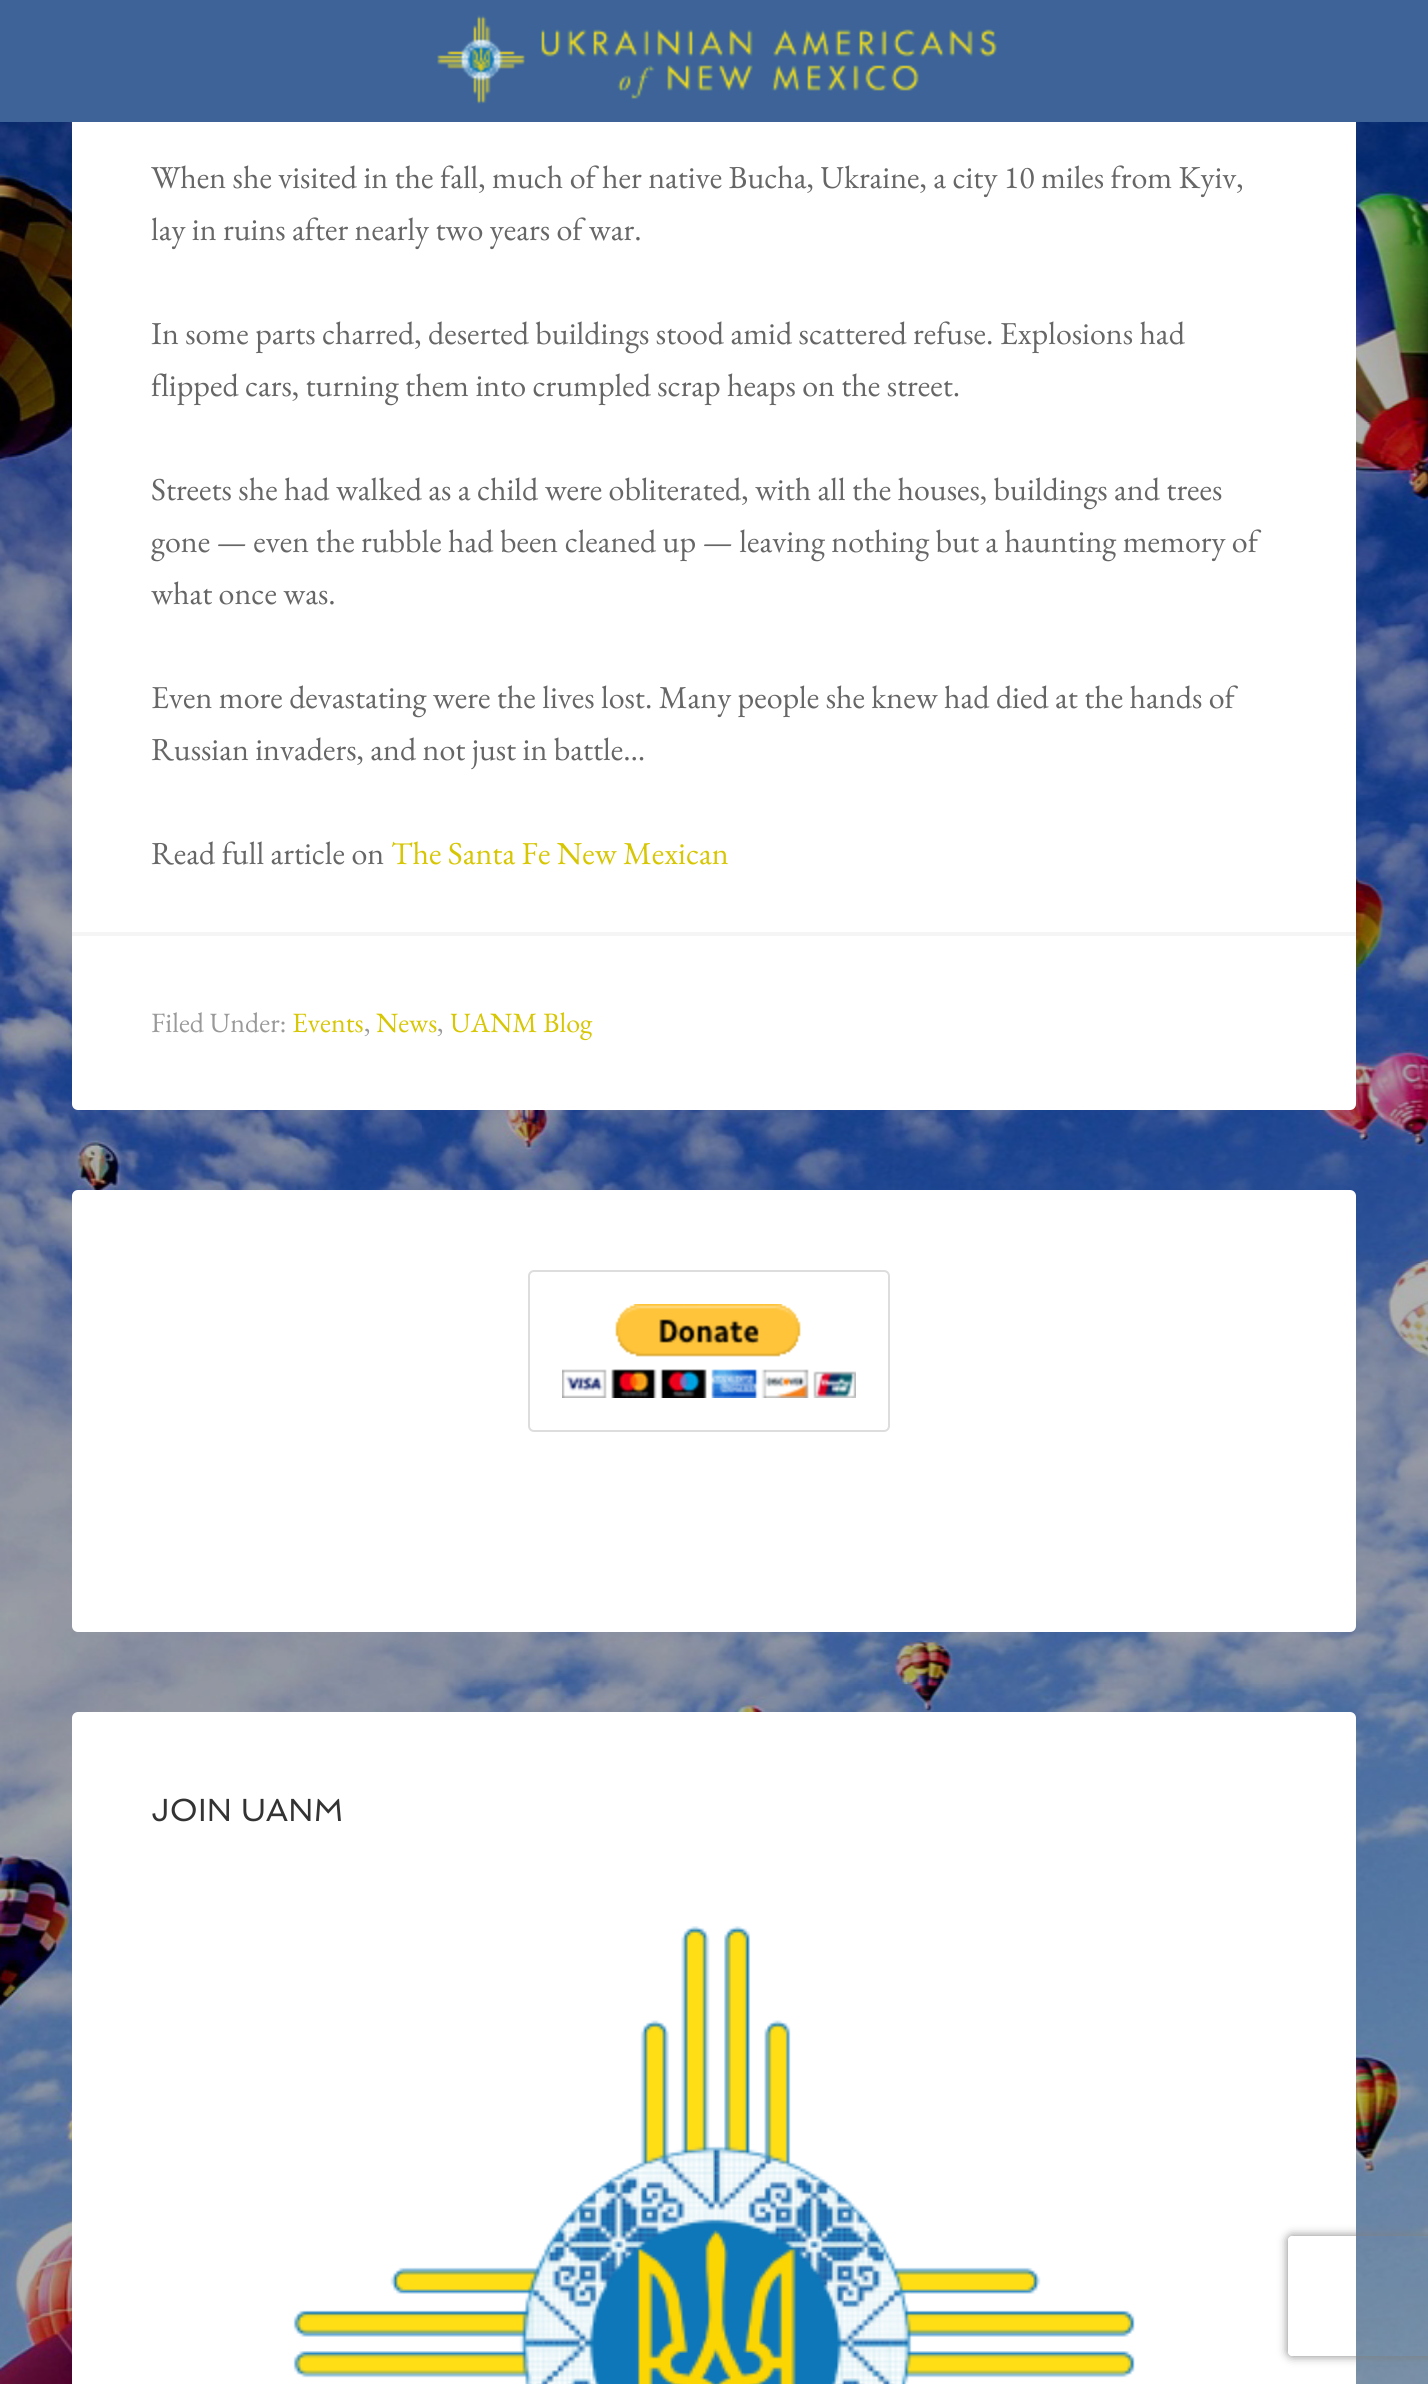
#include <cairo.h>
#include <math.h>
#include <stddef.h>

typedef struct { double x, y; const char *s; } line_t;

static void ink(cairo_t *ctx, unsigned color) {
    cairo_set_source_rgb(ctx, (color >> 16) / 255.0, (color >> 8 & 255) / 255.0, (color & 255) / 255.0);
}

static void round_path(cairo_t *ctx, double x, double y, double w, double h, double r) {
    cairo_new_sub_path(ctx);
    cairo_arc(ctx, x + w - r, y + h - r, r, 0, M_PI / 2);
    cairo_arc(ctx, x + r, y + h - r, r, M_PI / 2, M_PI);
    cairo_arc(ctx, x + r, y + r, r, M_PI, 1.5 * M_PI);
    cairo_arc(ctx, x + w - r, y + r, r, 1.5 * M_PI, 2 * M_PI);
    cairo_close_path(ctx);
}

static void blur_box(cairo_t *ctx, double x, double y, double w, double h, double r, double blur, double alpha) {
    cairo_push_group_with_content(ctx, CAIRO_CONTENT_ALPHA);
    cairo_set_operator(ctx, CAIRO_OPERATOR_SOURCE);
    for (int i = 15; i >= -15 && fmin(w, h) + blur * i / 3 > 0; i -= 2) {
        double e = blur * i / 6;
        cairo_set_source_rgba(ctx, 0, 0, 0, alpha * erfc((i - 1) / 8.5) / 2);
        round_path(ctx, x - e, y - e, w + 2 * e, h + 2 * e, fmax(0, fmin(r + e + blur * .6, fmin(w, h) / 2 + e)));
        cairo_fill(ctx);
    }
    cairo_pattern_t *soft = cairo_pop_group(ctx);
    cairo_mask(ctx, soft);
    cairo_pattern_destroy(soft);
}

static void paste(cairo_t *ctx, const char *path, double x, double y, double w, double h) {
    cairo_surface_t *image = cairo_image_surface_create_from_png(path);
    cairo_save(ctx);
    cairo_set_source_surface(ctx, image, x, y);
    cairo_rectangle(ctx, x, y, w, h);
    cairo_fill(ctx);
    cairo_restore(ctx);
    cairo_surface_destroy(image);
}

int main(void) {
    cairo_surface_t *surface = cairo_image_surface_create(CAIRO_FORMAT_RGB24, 1428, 2384);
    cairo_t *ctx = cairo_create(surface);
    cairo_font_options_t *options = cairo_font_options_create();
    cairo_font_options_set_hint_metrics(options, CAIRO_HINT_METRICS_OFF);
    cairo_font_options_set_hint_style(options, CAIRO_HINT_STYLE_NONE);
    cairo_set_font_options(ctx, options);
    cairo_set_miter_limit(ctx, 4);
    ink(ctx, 0xFFFFFF);
    cairo_paint(ctx);
    paste(ctx, "media/2.png", 0, 122, 1428, 2262);
    ink(ctx, 0xFFFFFF);
    round_path(ctx, 72, -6, 1284, 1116, 6);
    cairo_fill(ctx);
    ink(ctx, 0x3E6399);
    cairo_rectangle(ctx, 0, 0, 1428, 122);
    cairo_fill(ctx);
    paste(ctx, "media/1.png", 437, 15, 560, 89);
    cairo_select_font_face(ctx, "EB Garamond", CAIRO_FONT_SLANT_NORMAL, CAIRO_FONT_WEIGHT_NORMAL);
    cairo_set_font_size(ctx, 32);
    ink(ctx, 0x666666);
    {
        static const line_t items[] = {
            {151, 188, "When she visited in the fall, much of her native Bucha, Ukraine, a city 10 miles from Kyiv,"},
            {151, 240, "lay in ruins after nearly two years of war."},
            {151, 344, "In some parts charred, deserted buildings stood amid scattered refuse. Explosions had"},
            {151, 396, "flipped cars, turning them into crumpled scrap heaps on the street."},
            {151, 500, "Streets she had walked as a child were obliterated, with all the houses, buildings and trees"},
            {151, 552, "gone — even the rubble had been cleaned up — leaving nothing but a haunting memory of"},
            {151, 604, "what once was."},
            {151, 708, "Even more devastating were the lives lost. Many people she knew had died at the hands of"},
            {151, 760, "Russian invaders, and not just in battle…"},
            {151, 864, "Read full article on"},
        };
        for (size_t i = 0; i < sizeof items / sizeof *items; i++) {
            cairo_move_to(ctx, items[i].x, items[i].y);
            cairo_show_text(ctx, items[i].s);
        }
    }
    ink(ctx, 0xD7C603);
    cairo_move_to(ctx, 391, 864);
    cairo_show_text(ctx, "The Santa Fe New Mexican");
    ink(ctx, 0xF5F5F5);
    cairo_rectangle(ctx, 72, 932, 1284, 4);
    cairo_fill(ctx);
    cairo_set_font_size(ctx, 28);
    ink(ctx, 0x999999);
    cairo_move_to(ctx, 151, 1032);
    cairo_show_text(ctx, "Filed Under:");
    ink(ctx, 0xD7C603);
    cairo_move_to(ctx, 292, 1032);
    cairo_show_text(ctx, "Events");
    ink(ctx, 0x999999);
    cairo_move_to(ctx, 364, 1032);
    cairo_show_text(ctx, ",");
    ink(ctx, 0xD7C603);
    cairo_move_to(ctx, 376, 1032);
    cairo_show_text(ctx, "News");
    ink(ctx, 0x999999);
    cairo_move_to(ctx, 437, 1032);
    cairo_show_text(ctx, ",");
    ink(ctx, 0xD7C603);
    cairo_move_to(ctx, 450, 1032);
    cairo_show_text(ctx, "UANM Blog");
    ink(ctx, 0xFFFFFF);
    round_path(ctx, 72, 1190, 1284, 442, 6);
    cairo_fill(ctx);
    round_path(ctx, 529, 1271, 360, 160, 5);
    ink(ctx, 0xDDDDDD);
    cairo_stroke(ctx);
    paste(ctx, "media/3.png", 562, 1304, 294, 94);
    ink(ctx, 0xFFFFFF);
    round_path(ctx, 72, 1712, 1284, 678, 6);
    cairo_fill(ctx);
    cairo_select_font_face(ctx, "Spinnaker", CAIRO_FONT_SLANT_NORMAL, CAIRO_FONT_WEIGHT_NORMAL);
    cairo_set_font_size(ctx, 32);
    ink(ctx, 0x333333);
    cairo_move_to(ctx, 151, 1821);
    cairo_show_text(ctx, "JOIN UANM");
    paste(ctx, "media/4.png", 293, 1926, 842, 458);
    cairo_save(ctx);
    cairo_set_fill_rule(ctx, CAIRO_FILL_RULE_EVEN_ODD);
    cairo_new_path(ctx);
    cairo_move_to(ctx, 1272, 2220);
    cairo_line_to(ctx, 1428, 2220);
    cairo_line_to(ctx, 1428, 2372);
    cairo_line_to(ctx, 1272, 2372);
    cairo_close_path(ctx);
    cairo_move_to(ctx, 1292, 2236);
    cairo_line_to(ctx, 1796, 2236);
    cairo_curve_to(ctx, 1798, 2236, 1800, 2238, 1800, 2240);
    cairo_line_to(ctx, 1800, 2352);
    cairo_curve_to(ctx, 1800, 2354, 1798, 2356, 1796, 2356);
    cairo_line_to(ctx, 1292, 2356);
    cairo_curve_to(ctx, 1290, 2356, 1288, 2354, 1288, 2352);
    cairo_line_to(ctx, 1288, 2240);
    cairo_curve_to(ctx, 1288, 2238, 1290, 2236, 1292, 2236);
    cairo_close_path(ctx);
    cairo_clip(ctx);
    ink(ctx, 0x808080);
    blur_box(ctx, 1288, 2236, 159, 120, 4, 5, 1);
    cairo_restore(ctx);
    cairo_surface_write_to_png(surface, "image.png");
    cairo_font_options_destroy(options);
    cairo_destroy(ctx);
    cairo_surface_destroy(surface);
    return 0;
}
